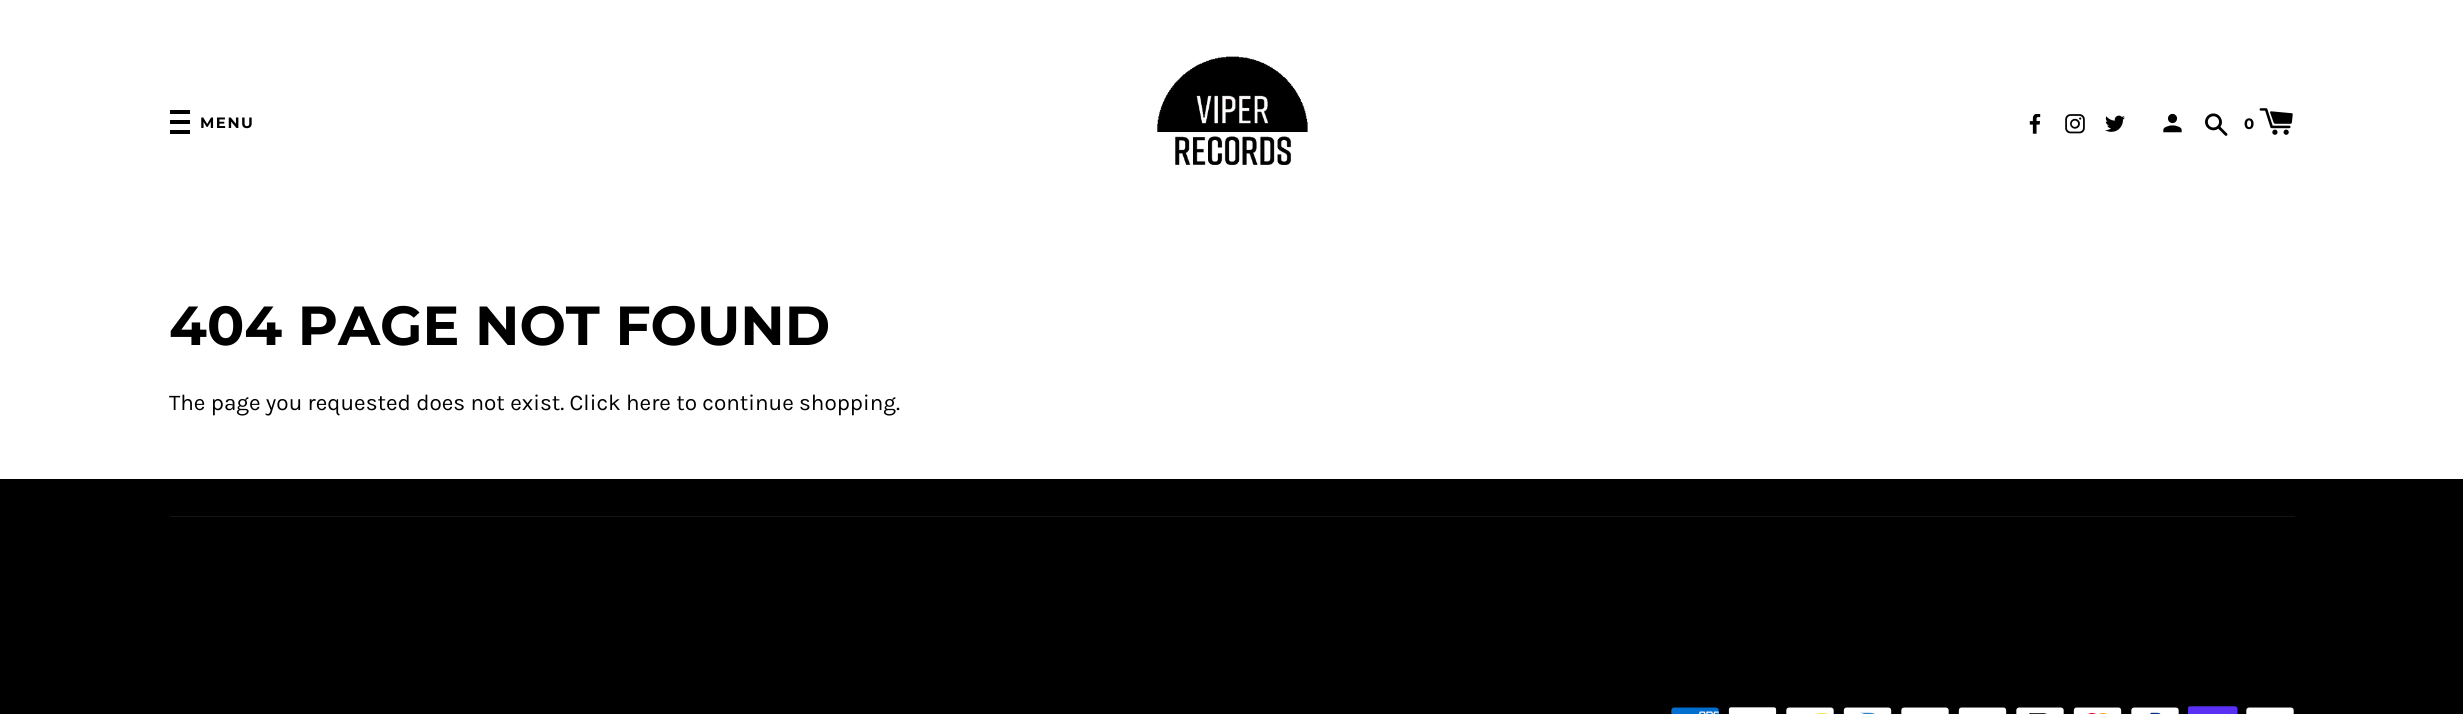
#include <cairo.h>
#include <math.h>
#include <stddef.h>

typedef struct { double x, y, w, h; unsigned color; } box_t;

static void ink(cairo_t *ctx, unsigned color) {
    cairo_set_source_rgb(ctx, (color >> 16) / 255.0, (color >> 8 & 255) / 255.0, (color & 255) / 255.0);
}

static void write_spaced(cairo_t *ctx, double x, double y, const char *s, double letter, double word) {
    cairo_move_to(ctx, x, y);
    while (*s) {
        char ch[5] = {0};
        int n = 0;
        do ch[n++] = *s++; while ((*s & 0xC0) == 0x80);
        cairo_show_text(ctx, ch);
        cairo_rel_move_to(ctx, letter + word * (*ch == ' '), 0);
    }
}

static void paste(cairo_t *ctx, const char *path, double x, double y, double w, double h) {
    cairo_surface_t *image = cairo_image_surface_create_from_png(path);
    cairo_save(ctx);
    cairo_set_source_surface(ctx, image, x, y);
    cairo_rectangle(ctx, x, y, w, h);
    cairo_fill(ctx);
    cairo_restore(ctx);
    cairo_surface_destroy(image);
}

int main(void) {
    cairo_surface_t *surface = cairo_image_surface_create(CAIRO_FORMAT_RGB24, 2463, 714);
    cairo_t *ctx = cairo_create(surface);
    cairo_font_options_t *options = cairo_font_options_create();
    cairo_font_options_set_hint_metrics(options, CAIRO_HINT_METRICS_OFF);
    cairo_font_options_set_hint_style(options, CAIRO_HINT_STYLE_NONE);
    cairo_set_font_options(ctx, options);
    cairo_set_miter_limit(ctx, 4);
    ink(ctx, 0xFFFFFF);
    cairo_paint(ctx);
    {
        static const box_t items[] = {
            {170, 110, 20, 4, 0x000000},
            {170, 120, 20, 4, 0x000000},
            {170, 130, 20, 4, 0x000000},
        };
        for (size_t i = 0; i < sizeof items / sizeof *items; i++) {
            ink(ctx, items[i].color);
            cairo_rectangle(ctx, items[i].x, items[i].y, items[i].w, items[i].h);
            cairo_fill(ctx);
        }
    }
    cairo_select_font_face(ctx, "Montserrat", CAIRO_FONT_SLANT_NORMAL, CAIRO_FONT_WEIGHT_BOLD);
    cairo_set_font_size(ctx, 15);
    write_spaced(ctx, 200, 128, "MENU", 1.5, 0);
    paste(ctx, "media/1.png", 1157, 56, 151, 109);
    paste(ctx, "media/2.png", 2029, 114, 12, 20);
    paste(ctx, "media/3.png", 2065, 114, 20, 20);
    paste(ctx, "media/4.png", 2105, 115, 20, 17);
    paste(ctx, "media/5.png", 2163, 113, 19, 20);
    paste(ctx, "media/6.png", 2205, 113, 23, 23);
    cairo_move_to(ctx, 2244, 129);
    cairo_show_text(ctx, "0");
    paste(ctx, "media/7.png", 2259, 108, 34, 27);
    cairo_set_font_size(ctx, 55);
    cairo_move_to(ctx, 169, 345);
    cairo_show_text(ctx, "404 PAGE NOT FOUND");
    cairo_select_font_face(ctx, "Karla", CAIRO_FONT_SLANT_NORMAL, CAIRO_FONT_WEIGHT_NORMAL);
    cairo_set_font_size(ctx, 22.5);
    cairo_move_to(ctx, 169, 410);
    cairo_show_text(ctx, "The page you requested does not exist. Click here to continue shopping.");
    cairo_rectangle(ctx, 0, 479, 2463, 235);
    cairo_fill(ctx);
    ink(ctx, 0x141414);
    cairo_rectangle(ctx, 170, 516, 2125, 1);
    cairo_fill(ctx);
    paste(ctx, "media/8.png", 1671, 707, 48, 7);
    paste(ctx, "media/9.png", 1728, 707, 49, 7);
    paste(ctx, "media/10.png", 1786, 707, 48, 7);
    paste(ctx, "media/11.png", 1843, 707, 49, 7);
    paste(ctx, "media/12.png", 1901, 707, 48, 7);
    paste(ctx, "media/13.png", 1958, 707, 49, 7);
    paste(ctx, "media/14.png", 2016, 707, 48, 7);
    paste(ctx, "media/15.png", 2073, 707, 49, 7);
    paste(ctx, "media/16.png", 2131, 707, 48, 7);
    paste(ctx, "media/17.png", 2188, 706, 50, 8);
    paste(ctx, "media/12.png", 2246, 707, 48, 7);
    cairo_surface_write_to_png(surface, "image.png");
    cairo_font_options_destroy(options);
    cairo_destroy(ctx);
    cairo_surface_destroy(surface);
    return 0;
}
